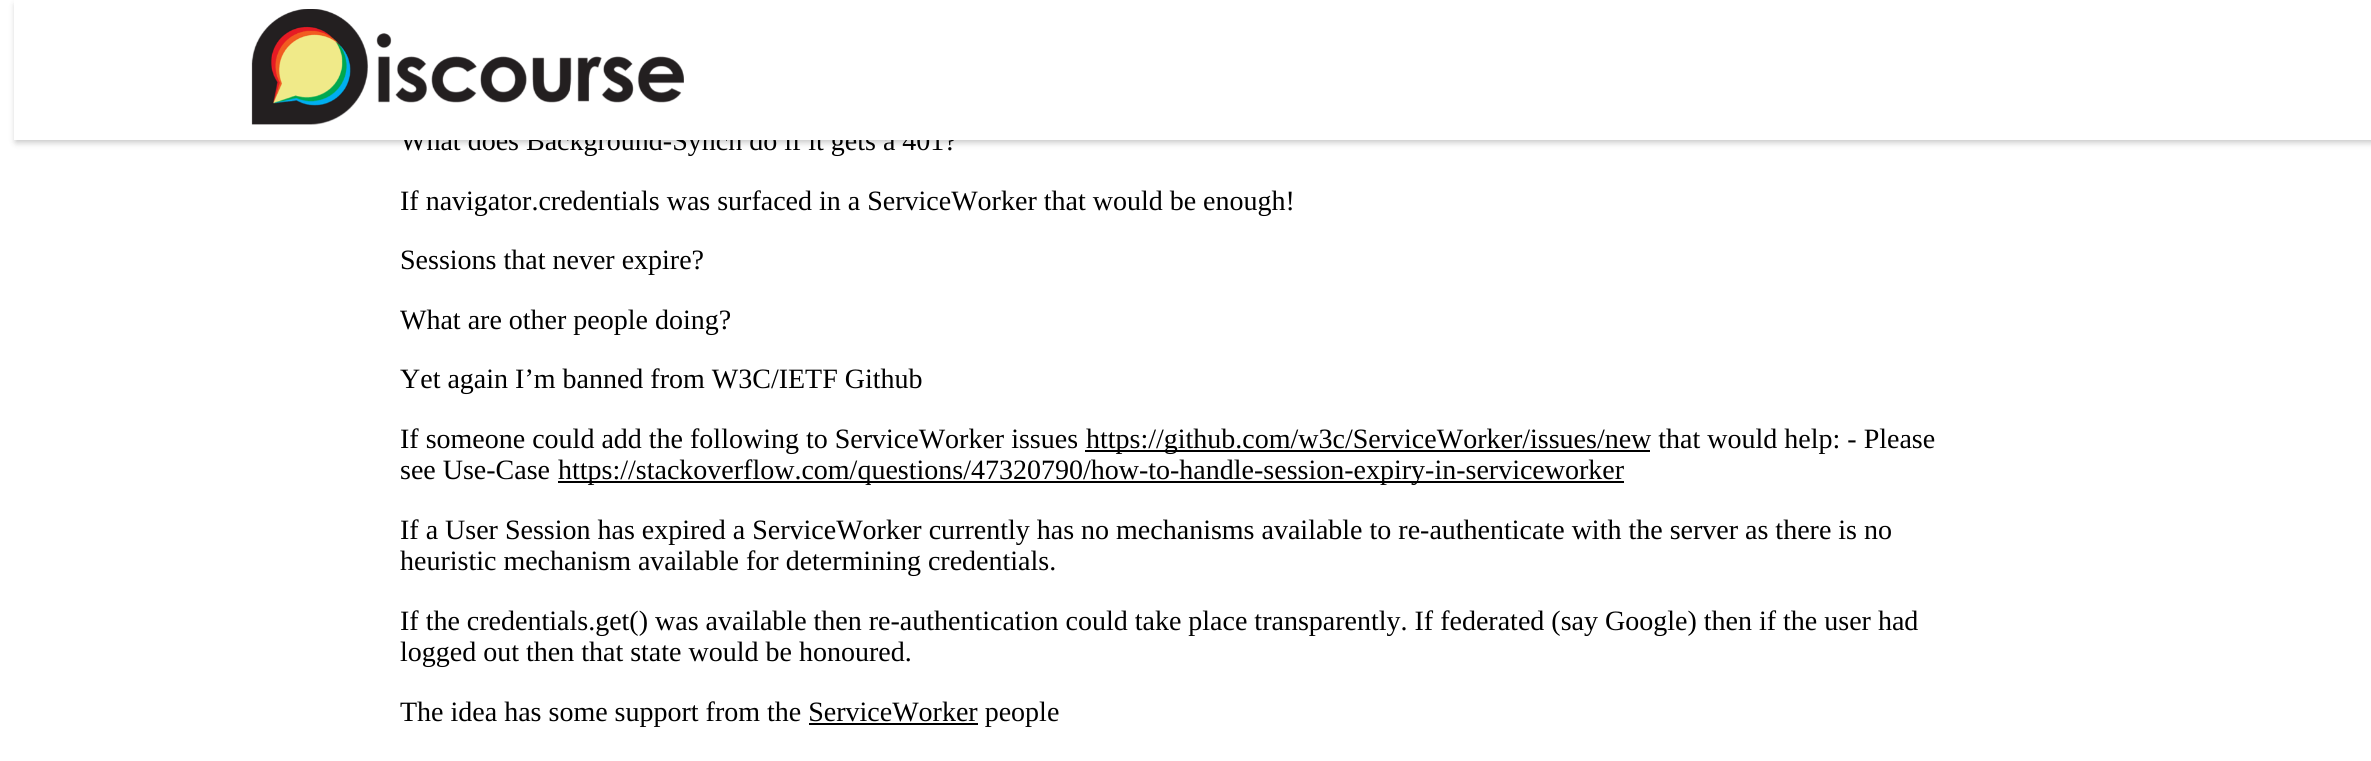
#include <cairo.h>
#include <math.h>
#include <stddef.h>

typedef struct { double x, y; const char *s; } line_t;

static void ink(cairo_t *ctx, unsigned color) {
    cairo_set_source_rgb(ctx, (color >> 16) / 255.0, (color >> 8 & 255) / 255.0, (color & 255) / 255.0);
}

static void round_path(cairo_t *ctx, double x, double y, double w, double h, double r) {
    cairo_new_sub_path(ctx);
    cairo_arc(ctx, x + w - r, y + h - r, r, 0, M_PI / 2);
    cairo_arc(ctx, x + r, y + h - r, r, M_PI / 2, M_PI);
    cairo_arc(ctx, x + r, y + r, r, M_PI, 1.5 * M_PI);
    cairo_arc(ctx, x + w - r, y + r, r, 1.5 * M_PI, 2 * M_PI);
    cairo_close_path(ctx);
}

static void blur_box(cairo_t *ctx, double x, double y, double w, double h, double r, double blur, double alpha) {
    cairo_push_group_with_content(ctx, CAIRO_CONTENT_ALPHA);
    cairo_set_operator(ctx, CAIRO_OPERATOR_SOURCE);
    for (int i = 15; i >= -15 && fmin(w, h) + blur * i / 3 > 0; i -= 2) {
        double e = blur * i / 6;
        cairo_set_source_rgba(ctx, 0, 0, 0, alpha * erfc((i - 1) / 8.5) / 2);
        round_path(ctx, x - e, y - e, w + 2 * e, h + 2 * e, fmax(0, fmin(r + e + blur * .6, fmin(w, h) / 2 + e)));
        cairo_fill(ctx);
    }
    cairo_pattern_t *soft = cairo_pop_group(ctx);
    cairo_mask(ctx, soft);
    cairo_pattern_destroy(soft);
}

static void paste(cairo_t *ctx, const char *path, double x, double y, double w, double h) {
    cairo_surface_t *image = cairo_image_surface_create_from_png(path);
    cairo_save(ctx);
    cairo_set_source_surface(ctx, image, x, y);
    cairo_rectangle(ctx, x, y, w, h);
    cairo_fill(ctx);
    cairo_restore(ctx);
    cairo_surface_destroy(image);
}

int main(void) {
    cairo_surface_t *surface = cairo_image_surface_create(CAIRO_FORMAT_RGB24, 2371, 761);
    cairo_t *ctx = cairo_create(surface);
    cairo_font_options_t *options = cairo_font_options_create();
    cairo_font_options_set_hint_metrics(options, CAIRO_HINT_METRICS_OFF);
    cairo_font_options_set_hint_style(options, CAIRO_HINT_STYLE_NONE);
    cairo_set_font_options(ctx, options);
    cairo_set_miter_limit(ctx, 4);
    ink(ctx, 0xFFFFFF);
    cairo_paint(ctx);
    ink(ctx, 0x000000);
    blur_box(ctx, 16, 5, 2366, 137, 0, 3.5, 0.25);
    cairo_select_font_face(ctx, "Liberation Serif", CAIRO_FONT_SLANT_NORMAL, CAIRO_FONT_WEIGHT_NORMAL);
    cairo_set_font_size(ctx, 28);
    ink(ctx, 0x000000);
    cairo_move_to(ctx, 400, 150);
    cairo_show_text(ctx, "What does Background-Synch do if it gets a 401?");
    ink(ctx, 0xFFFFFF);
    cairo_rectangle(ctx, 14, 0, 2357, 140);
    cairo_fill(ctx);
    paste(ctx, "media/1.png", 251, 9, 433, 116);
    ink(ctx, 0x000000);
    {
        static const line_t items[] = {
            {400, 210, "If navigator.credentials was surfaced in a ServiceWorker that would be enough!"},
            {400, 269, "Sessions that never expire?"},
            {400, 329, "What are other people doing?"},
            {400, 388, "Yet again I’m banned from W3C/IETF Github"},
            {400, 448, "If someone could add the following to ServiceWorker issues"},
        };
        for (size_t i = 0; i < sizeof items / sizeof *items; i++) {
            cairo_move_to(ctx, items[i].x, items[i].y);
            cairo_show_text(ctx, items[i].s);
        }
    }
    cairo_rectangle(ctx, 1085, 450, 565, 2);
    cairo_fill(ctx);
    cairo_move_to(ctx, 1086, 448);
    cairo_show_text(ctx, "https://github.com/w3c/ServiceWorker/issues/new that would help: - Please");
    cairo_move_to(ctx, 400, 479);
    cairo_show_text(ctx, "see Use-Case");
    cairo_rectangle(ctx, 558, 481, 1066, 2);
    cairo_fill(ctx);
    {
        static const line_t items[] = {
            {558, 479, "https://stackoverflow.com/questions/47320790/how-to-handle-session-expiry-in-serviceworker"},
            {400, 539, "If a User Session has expired a ServiceWorker currently has no mechanisms available to re-authenticate with the server as there is no"},
            {400, 570, "heuristic mechanism available for determining credentials."},
            {400, 630, "If the credentials.get() was available then re-authentication could take place transparently. If federated (say Google) then if the user had"},
            {400, 661, "logged out then that state would be honoured."},
            {400, 721, "The idea has some support from the ServiceWorker people"},
        };
        for (size_t i = 0; i < sizeof items / sizeof *items; i++) {
            cairo_move_to(ctx, items[i].x, items[i].y);
            cairo_show_text(ctx, items[i].s);
        }
    }
    cairo_rectangle(ctx, 809, 723, 169, 2);
    cairo_fill(ctx);
    cairo_surface_write_to_png(surface, "image.png");
    cairo_font_options_destroy(options);
    cairo_destroy(ctx);
    cairo_surface_destroy(surface);
    return 0;
}
